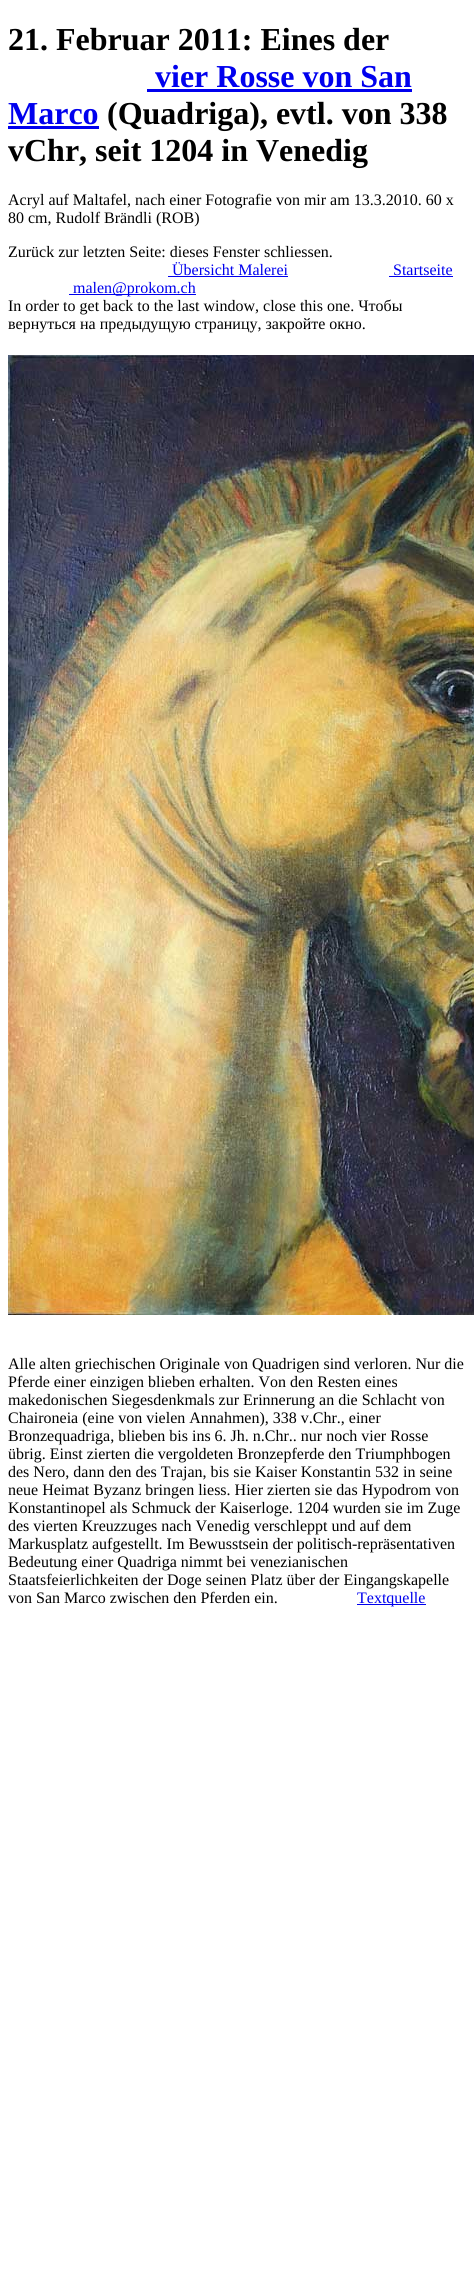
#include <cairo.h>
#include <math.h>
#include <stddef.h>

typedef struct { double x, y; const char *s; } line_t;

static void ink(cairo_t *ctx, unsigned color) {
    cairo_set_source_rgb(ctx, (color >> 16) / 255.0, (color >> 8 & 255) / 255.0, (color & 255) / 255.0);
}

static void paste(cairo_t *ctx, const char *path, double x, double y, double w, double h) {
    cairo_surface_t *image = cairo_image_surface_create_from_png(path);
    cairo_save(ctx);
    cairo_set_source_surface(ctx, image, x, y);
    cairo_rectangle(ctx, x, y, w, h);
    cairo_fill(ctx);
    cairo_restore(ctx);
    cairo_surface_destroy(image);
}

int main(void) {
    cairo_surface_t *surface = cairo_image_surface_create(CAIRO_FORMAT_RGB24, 474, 2291);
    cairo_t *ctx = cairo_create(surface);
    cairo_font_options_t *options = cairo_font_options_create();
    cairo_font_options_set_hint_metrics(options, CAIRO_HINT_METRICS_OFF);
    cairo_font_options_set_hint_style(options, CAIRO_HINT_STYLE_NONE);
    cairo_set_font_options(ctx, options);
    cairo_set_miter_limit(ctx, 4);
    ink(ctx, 0xFFFFFF);
    cairo_paint(ctx);
    cairo_select_font_face(ctx, "Liberation Serif", CAIRO_FONT_SLANT_NORMAL, CAIRO_FONT_WEIGHT_BOLD);
    cairo_set_font_size(ctx, 32);
    ink(ctx, 0x000000);
    cairo_move_to(ctx, 8, 50);
    cairo_show_text(ctx, "21. Februar 2011: Eines der");
    ink(ctx, 0x0000EE);
    cairo_move_to(ctx, 155, 87);
    cairo_show_text(ctx, "vier Rosse von San");
    cairo_rectangle(ctx, 147, 89, 265, 3);
    cairo_fill(ctx);
    cairo_move_to(ctx, 8, 124);
    cairo_show_text(ctx, "Marco");
    cairo_rectangle(ctx, 8, 126, 91, 3);
    cairo_fill(ctx);
    ink(ctx, 0x000000);
    cairo_move_to(ctx, 107, 124);
    cairo_show_text(ctx, "(Quadriga), evtl. von 338");
    cairo_move_to(ctx, 8, 161);
    cairo_show_text(ctx, "vChr, seit 1204 in Venedig");
    cairo_select_font_face(ctx, "Liberation Serif", CAIRO_FONT_SLANT_NORMAL, CAIRO_FONT_WEIGHT_NORMAL);
    cairo_set_font_size(ctx, 16);
    {
        static const line_t items[] = {
            {8, 205, "Acryl auf Maltafel, nach einer Fotografie von mir am 13.3.2010. 60 x"},
            {8, 223, "80 cm, Rudolf Brändli (ROB)"},
            {8, 257, "Zurück zur letzten Seite: dieses Fenster schliessen."},
        };
        for (size_t i = 0; i < sizeof items / sizeof *items; i++) {
            cairo_move_to(ctx, items[i].x, items[i].y);
            cairo_show_text(ctx, items[i].s);
        }
    }
    ink(ctx, 0x0000EE);
    cairo_move_to(ctx, 172, 275);
    cairo_show_text(ctx, "Übersicht Malerei");
    cairo_rectangle(ctx, 168, 276, 120, 1);
    cairo_fill(ctx);
    cairo_move_to(ctx, 393, 275);
    cairo_show_text(ctx, "Startseite");
    cairo_rectangle(ctx, 389, 276, 64, 1);
    cairo_fill(ctx);
    cairo_rectangle(ctx, 69, 294, 127, 1);
    cairo_fill(ctx);
    cairo_move_to(ctx, 73, 293);
    cairo_show_text(ctx, "malen@prokom.ch");
    ink(ctx, 0x000000);
    cairo_move_to(ctx, 8, 311);
    cairo_show_text(ctx, "In order to get back to the last window, close this one. Чтобы");
    cairo_move_to(ctx, 8, 329);
    cairo_show_text(ctx, "вернуться на предыдущую страницу, закройте окно.");
    paste(ctx, "media/1.png", 8, 355, 466, 960);
    {
        static const line_t items[] = {
            {8, 1369, "Alle alten griechischen Originale von Quadrigen sind verloren. Nur die"},
            {8, 1387, "Pferde einer einzigen blieben erhalten. Von den Resten eines"},
            {8, 1405, "makedonischen Siegesdenkmals zur Erinnerung an die Schlacht von"},
            {8, 1423, "Chaironeia (eine von vielen Annahmen), 338 v.Chr., einer"},
            {8, 1441, "Bronzequadriga, blieben bis ins 6. Jh. n.Chr.. nur noch vier Rosse"},
            {8, 1459, "übrig. Einst zierten die vergoldeten Bronzepferde den Triumphbogen"},
            {8, 1477, "des Nero, dann den des Trajan, bis sie Kaiser Konstantin 532 in seine"},
            {8, 1495, "neue Heimat Byzanz bringen liess. Hier zierten sie das Hypodrom von"},
            {8, 1513, "Konstantinopel als Schmuck der Kaiserloge. 1204 wurden sie im Zuge"},
            {8, 1531, "des vierten Kreuzzuges nach Venedig verschleppt und auf dem"},
            {8, 1549, "Markusplatz aufgestellt. Im Bewusstsein der politisch-repräsentativen"},
            {8, 1567, "Bedeutung einer Quadriga nimmt bei venezianischen"},
            {8, 1585, "Staatsfeierlichkeiten der Doge seinen Platz über der Eingangskapelle"},
            {8, 1603, "von San Marco zwischen den Pferden ein."},
        };
        for (size_t i = 0; i < sizeof items / sizeof *items; i++) {
            cairo_move_to(ctx, items[i].x, items[i].y);
            cairo_show_text(ctx, items[i].s);
        }
    }
    ink(ctx, 0x0000EE);
    cairo_rectangle(ctx, 357, 1604, 69, 1);
    cairo_fill(ctx);
    cairo_move_to(ctx, 357, 1603);
    cairo_show_text(ctx, "Textquelle");
    cairo_surface_write_to_png(surface, "image.png");
    cairo_font_options_destroy(options);
    cairo_destroy(ctx);
    cairo_surface_destroy(surface);
    return 0;
}
